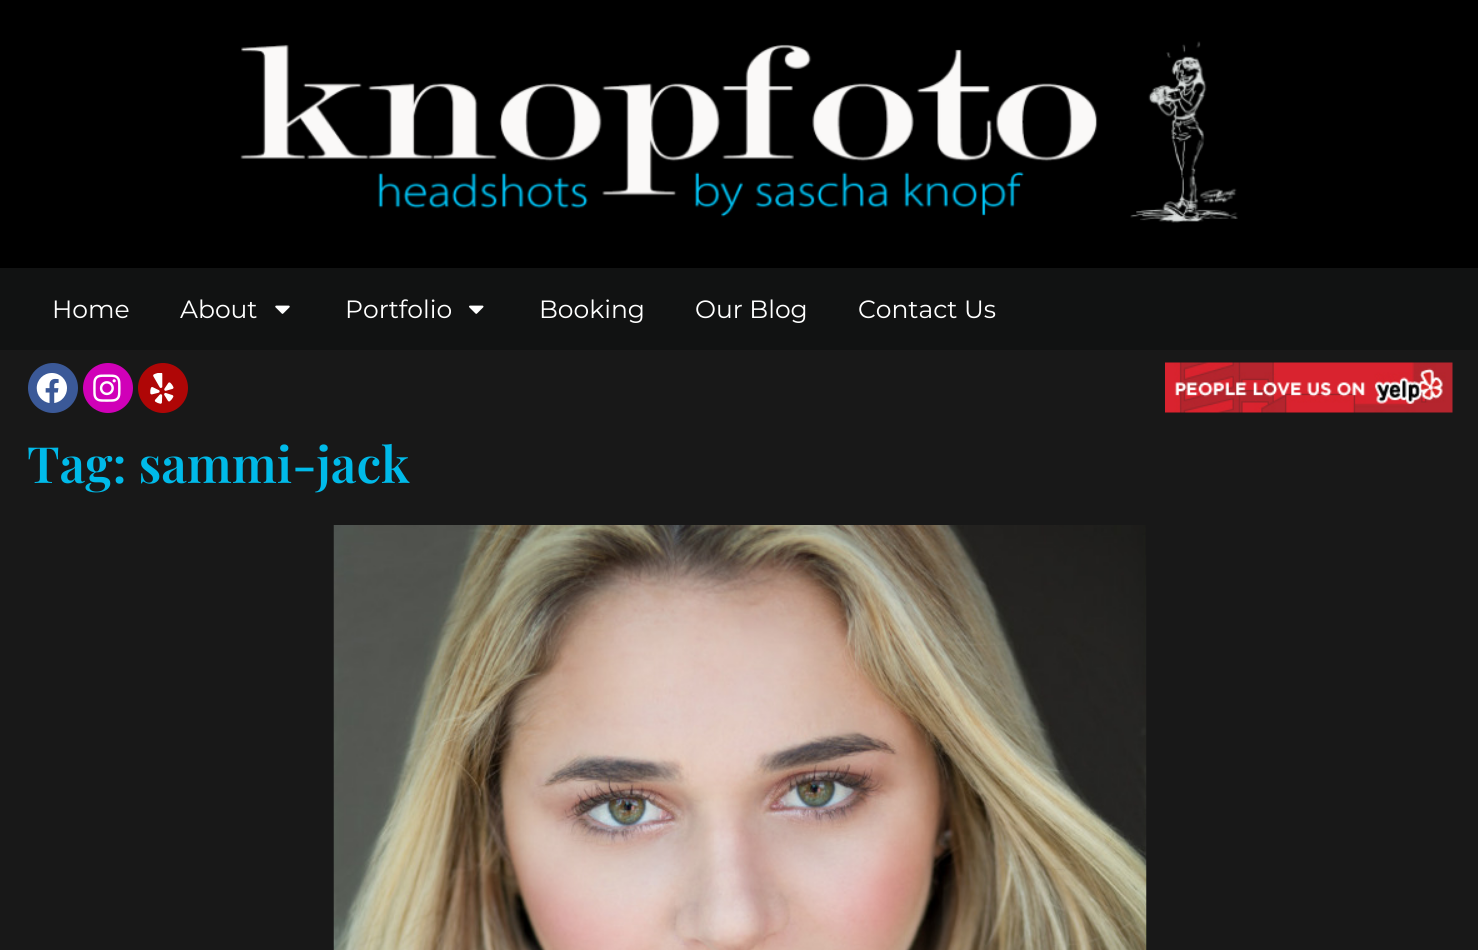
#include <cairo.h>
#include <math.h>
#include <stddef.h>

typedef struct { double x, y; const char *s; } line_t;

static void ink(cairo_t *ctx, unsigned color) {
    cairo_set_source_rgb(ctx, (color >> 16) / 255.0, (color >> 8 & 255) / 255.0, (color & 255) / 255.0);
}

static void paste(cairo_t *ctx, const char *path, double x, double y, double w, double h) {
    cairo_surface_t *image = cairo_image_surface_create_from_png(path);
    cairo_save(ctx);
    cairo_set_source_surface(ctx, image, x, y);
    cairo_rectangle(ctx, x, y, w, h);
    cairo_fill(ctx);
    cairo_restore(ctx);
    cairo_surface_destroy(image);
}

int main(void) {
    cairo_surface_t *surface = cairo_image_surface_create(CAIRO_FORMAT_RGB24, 1478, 950);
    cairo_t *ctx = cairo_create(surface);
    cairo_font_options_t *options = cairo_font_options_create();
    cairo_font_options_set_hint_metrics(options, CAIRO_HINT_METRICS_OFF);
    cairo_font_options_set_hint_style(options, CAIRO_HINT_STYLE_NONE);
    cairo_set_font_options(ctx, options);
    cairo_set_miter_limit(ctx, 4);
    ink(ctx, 0x181818);
    cairo_paint(ctx);
    ink(ctx, 0x000000);
    cairo_rectangle(ctx, 0, 0, 1478, 268);
    cairo_fill(ctx);
    paste(ctx, "media/1.png", 240, 41, 998, 182);
    ink(ctx, 0x111212);
    cairo_rectangle(ctx, 0, 268, 1478, 82);
    cairo_fill(ctx);
    cairo_select_font_face(ctx, "Montserrat", CAIRO_FONT_SLANT_NORMAL, CAIRO_FONT_WEIGHT_NORMAL);
    cairo_set_font_size(ctx, 25);
    ink(ctx, 0xFFFFFF);
    cairo_move_to(ctx, 52, 318);
    cairo_show_text(ctx, "Home");
    cairo_move_to(ctx, 180, 318);
    cairo_show_text(ctx, "About");
    paste(ctx, "media/2.png", 275, 305, 15, 9);
    cairo_move_to(ctx, 345, 318);
    cairo_show_text(ctx, "Portfolio");
    paste(ctx, "media/3.png", 469, 305, 15, 9);
    {
        static const line_t items[] = {
            {539, 318, "Booking"},
            {695, 318, "Our Blog"},
            {858, 318, "Contact Us"},
        };
        for (size_t i = 0; i < sizeof items / sizeof *items; i++) {
            cairo_move_to(ctx, items[i].x, items[i].y);
            cairo_show_text(ctx, items[i].s);
        }
    }
    ink(ctx, 0x3B5998);
    cairo_new_path(ctx);
    cairo_arc(ctx, 53, 388, 25, 0, 2 * M_PI);
    cairo_fill(ctx);
    paste(ctx, "media/4.png", 36, 373, 31, 30);
    ink(ctx, 0xD000B8);
    cairo_arc(ctx, 108, 388, 25, 0, 2 * M_PI);
    cairo_fill(ctx);
    paste(ctx, "media/5.png", 93, 374, 28, 28);
    ink(ctx, 0xAF0606);
    cairo_arc(ctx, 163, 388, 25, 0, 2 * M_PI);
    cairo_fill(ctx);
    paste(ctx, "media/6.png", 150, 373, 24, 31);
    paste(ctx, "media/7.png", 1165, 362, 288, 51);
    cairo_select_font_face(ctx, "Playfair Display SemiBold", CAIRO_FONT_SLANT_NORMAL, CAIRO_FONT_WEIGHT_NORMAL);
    cairo_set_font_size(ctx, 50);
    ink(ctx, 0x00BAE9);
    cairo_move_to(ctx, 27, 483);
    cairo_show_text(ctx, "Tag: sammi-jack");
    paste(ctx, "media/8.png", 333, 525, 814, 425);
    cairo_surface_write_to_png(surface, "image.png");
    cairo_font_options_destroy(options);
    cairo_destroy(ctx);
    cairo_surface_destroy(surface);
    return 0;
}
